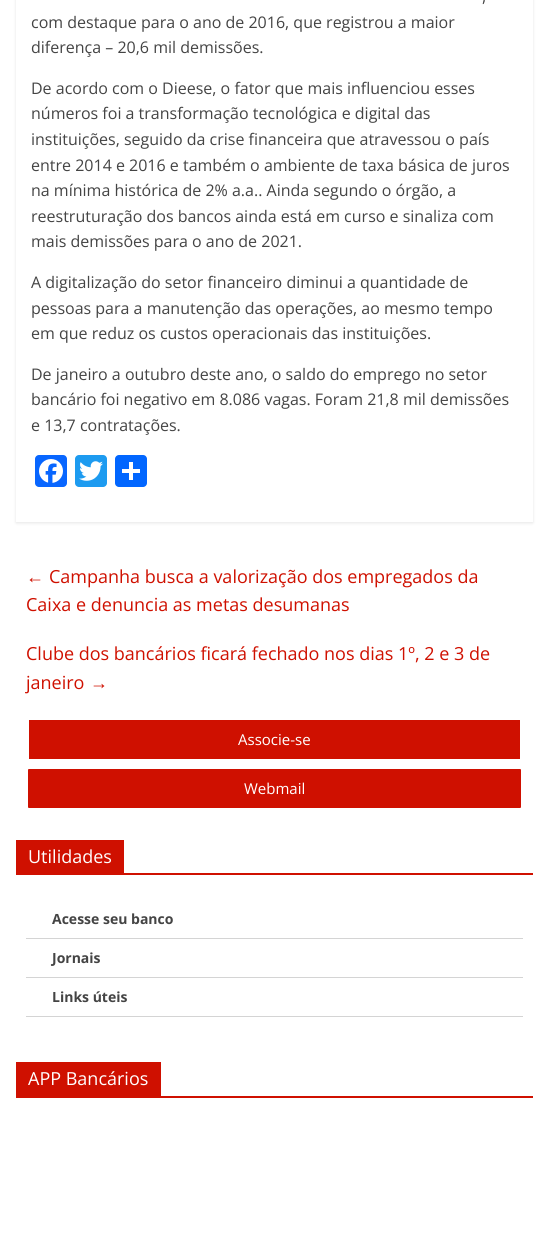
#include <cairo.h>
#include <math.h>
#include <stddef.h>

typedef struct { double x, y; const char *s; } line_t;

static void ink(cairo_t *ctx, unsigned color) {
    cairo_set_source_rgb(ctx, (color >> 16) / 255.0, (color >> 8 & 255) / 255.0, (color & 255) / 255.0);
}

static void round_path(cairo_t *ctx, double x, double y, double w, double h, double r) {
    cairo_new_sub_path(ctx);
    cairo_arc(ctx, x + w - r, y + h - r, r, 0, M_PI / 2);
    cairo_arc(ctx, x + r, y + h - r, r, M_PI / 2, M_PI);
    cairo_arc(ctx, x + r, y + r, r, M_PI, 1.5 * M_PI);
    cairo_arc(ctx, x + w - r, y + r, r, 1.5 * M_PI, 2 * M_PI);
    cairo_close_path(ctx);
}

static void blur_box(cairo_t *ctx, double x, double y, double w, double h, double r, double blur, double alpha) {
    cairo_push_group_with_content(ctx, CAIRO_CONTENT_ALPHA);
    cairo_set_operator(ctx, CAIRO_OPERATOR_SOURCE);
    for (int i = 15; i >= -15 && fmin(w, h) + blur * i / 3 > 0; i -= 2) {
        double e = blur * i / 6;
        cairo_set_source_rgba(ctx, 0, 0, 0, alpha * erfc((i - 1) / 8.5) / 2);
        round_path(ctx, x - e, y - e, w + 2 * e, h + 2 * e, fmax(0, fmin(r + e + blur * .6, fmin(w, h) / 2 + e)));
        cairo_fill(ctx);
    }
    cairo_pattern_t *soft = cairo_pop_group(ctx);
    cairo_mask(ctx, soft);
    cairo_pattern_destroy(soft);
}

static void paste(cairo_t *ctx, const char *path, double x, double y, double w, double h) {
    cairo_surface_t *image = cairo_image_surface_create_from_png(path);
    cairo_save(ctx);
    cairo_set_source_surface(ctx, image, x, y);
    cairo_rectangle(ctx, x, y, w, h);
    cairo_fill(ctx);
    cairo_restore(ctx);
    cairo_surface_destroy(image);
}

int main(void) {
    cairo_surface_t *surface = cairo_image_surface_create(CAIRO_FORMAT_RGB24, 549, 1255);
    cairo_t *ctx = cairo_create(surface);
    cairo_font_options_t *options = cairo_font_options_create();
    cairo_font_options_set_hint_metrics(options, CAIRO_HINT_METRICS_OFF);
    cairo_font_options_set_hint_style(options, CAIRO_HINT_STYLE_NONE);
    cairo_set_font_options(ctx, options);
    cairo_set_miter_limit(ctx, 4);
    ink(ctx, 0xFFFFFF);
    cairo_paint(ctx);
    cairo_save(ctx);
    cairo_set_fill_rule(ctx, CAIRO_FILL_RULE_EVEN_ODD);
    cairo_new_path(ctx);
    cairo_move_to(ctx, 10, 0);
    cairo_line_to(ctx, 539, 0);
    cairo_line_to(ctx, 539, 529);
    cairo_line_to(ctx, 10, 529);
    cairo_close_path(ctx);
    cairo_move_to(ctx, 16, -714);
    cairo_line_to(ctx, 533, -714);
    cairo_line_to(ctx, 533, 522);
    cairo_line_to(ctx, 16, 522);
    cairo_close_path(ctx);
    cairo_clip(ctx);
    ink(ctx, 0x000000);
    blur_box(ctx, 16, -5, 517, 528, 0, 1.5, 0.1);
    cairo_restore(ctx);
    cairo_select_font_face(ctx, "Open Sans", CAIRO_FONT_SLANT_NORMAL, CAIRO_FONT_WEIGHT_NORMAL);
    cairo_set_font_size(ctx, 16);
    ink(ctx, 0x444444);
    {
        static const line_t items[] = {
            {482, 2, ","},
            {31, 28, "com destaque para o ano de 2016, que registrou a maior"},
            {31, 53, "diferença – 20,6 mil demissões."},
            {31, 94, "De acordo com o Dieese, o fator que mais influenciou esses"},
            {31, 119, "números foi a transformação tecnológica e digital das"},
            {31, 145, "instituições, seguido da crise financeira que atravessou o país"},
            {31, 171, "entre 2014 e 2016 e também o ambiente de taxa básica de juros"},
            {31, 196, "na mínima histórica de 2% a.a.. Ainda segundo o órgão, a"},
            {31, 222, "reestruturação dos bancos ainda está em curso e sinaliza com"},
            {31, 247, "mais demissões para o ano de 2021."},
            {31, 288, "A digitalização do setor financeiro diminui a quantidade de"},
            {31, 314, "pessoas para a manutenção das operações, ao mesmo tempo"},
            {31, 339, "em que reduz os custos operacionais das instituições."},
            {31, 380, "De janeiro a outubro deste ano, o saldo do emprego no setor"},
            {31, 405, "bancário foi negativo em 8.086 vagas. Foram 21,8 mil demissões"},
            {31, 431, "e 13,7 contratações."},
        };
        for (size_t i = 0; i < sizeof items / sizeof *items; i++) {
            cairo_move_to(ctx, items[i].x, items[i].y);
            cairo_show_text(ctx, items[i].s);
        }
    }
    ink(ctx, 0x0866FF);
    round_path(ctx, 35, 455, 32, 32, 4);
    cairo_fill(ctx);
    paste(ctx, "media/1.png", 39, 459, 24, 24);
    ink(ctx, 0x1D9BF0);
    round_path(ctx, 75, 455, 32, 32, 4);
    cairo_fill(ctx);
    paste(ctx, "media/2.png", 79, 461, 24, 20);
    ink(ctx, 0x0166FF);
    round_path(ctx, 115, 455, 32, 32, 4);
    cairo_fill(ctx);
    ink(ctx, 0xFFFFFF);
    cairo_rectangle(ctx, 129, 462, 4, 18);
    cairo_fill(ctx);
    cairo_rectangle(ctx, 122, 469, 18, 4);
    cairo_fill(ctx);
    cairo_select_font_face(ctx, "Liberation Serif", CAIRO_FONT_SLANT_NORMAL, CAIRO_FONT_WEIGHT_NORMAL);
    cairo_set_font_size(ctx, 18);
    ink(ctx, 0xCF1000);
    cairo_move_to(ctx, 26, 583);
    cairo_show_text(ctx, "←");
    cairo_select_font_face(ctx, "Open Sans", CAIRO_FONT_SLANT_NORMAL, CAIRO_FONT_WEIGHT_NORMAL);
    {
        static const line_t items[] = {
            {49, 583, "Campanha busca a valorização dos empregados da"},
            {26, 611, "Caixa e denuncia as metas desumanas"},
            {26, 660, "Clube dos bancários ficará fechado nos dias 1º, 2 e 3 de"},
            {26, 689, "janeiro"},
        };
        for (size_t i = 0; i < sizeof items / sizeof *items; i++) {
            cairo_move_to(ctx, items[i].x, items[i].y);
            cairo_show_text(ctx, items[i].s);
        }
    }
    cairo_select_font_face(ctx, "Liberation Serif", CAIRO_FONT_SLANT_NORMAL, CAIRO_FONT_WEIGHT_NORMAL);
    cairo_move_to(ctx, 90, 689);
    cairo_show_text(ctx, "→");
    round_path(ctx, 27.5, 718.5, 494, 42, 1.5);
    cairo_fill_preserve(ctx);
    ink(ctx, 0xFFFFFF);
    cairo_set_line_width(ctx, 3);
    cairo_stroke(ctx);
    cairo_select_font_face(ctx, "Open Sans", CAIRO_FONT_SLANT_NORMAL, CAIRO_FONT_WEIGHT_NORMAL);
    cairo_set_font_size(ctx, 15);
    cairo_move_to(ctx, 238, 745);
    cairo_show_text(ctx, "Associe-se");
    ink(ctx, 0xCF1000);
    round_path(ctx, 27, 768, 495, 41, 2);
    cairo_fill_preserve(ctx);
    ink(ctx, 0xFFFFFF);
    cairo_set_line_width(ctx, 2);
    cairo_stroke(ctx);
    cairo_move_to(ctx, 244, 794);
    cairo_show_text(ctx, "Webmail");
    ink(ctx, 0xCF1000);
    cairo_rectangle(ctx, 16, 873, 517, 2);
    cairo_fill(ctx);
    cairo_rectangle(ctx, 16, 840, 108, 33);
    cairo_fill(ctx);
    cairo_set_font_size(ctx, 18);
    ink(ctx, 0xFFFFFF);
    cairo_move_to(ctx, 28, 863);
    cairo_show_text(ctx, "Utilidades");
    ink(ctx, 0xD4D4D4);
    cairo_rectangle(ctx, 26, 938, 497, 1);
    cairo_fill(ctx);
    cairo_select_font_face(ctx, "Open Sans", CAIRO_FONT_SLANT_NORMAL, CAIRO_FONT_WEIGHT_BOLD);
    cairo_set_font_size(ctx, 14);
    ink(ctx, 0x444444);
    cairo_move_to(ctx, 52, 924);
    cairo_show_text(ctx, "Acesse seu banco");
    ink(ctx, 0xD4D4D4);
    cairo_rectangle(ctx, 26, 977, 497, 1);
    cairo_fill(ctx);
    ink(ctx, 0x444444);
    cairo_move_to(ctx, 52, 963);
    cairo_show_text(ctx, "Jornais");
    ink(ctx, 0xD4D4D4);
    cairo_rectangle(ctx, 26, 1016, 497, 1);
    cairo_fill(ctx);
    ink(ctx, 0x444444);
    cairo_move_to(ctx, 52, 1002);
    cairo_show_text(ctx, "Links úteis");
    ink(ctx, 0xCF1000);
    cairo_rectangle(ctx, 16, 1096, 517, 2);
    cairo_fill(ctx);
    cairo_rectangle(ctx, 16, 1062, 145, 34);
    cairo_fill(ctx);
    cairo_select_font_face(ctx, "Open Sans", CAIRO_FONT_SLANT_NORMAL, CAIRO_FONT_WEIGHT_NORMAL);
    cairo_set_font_size(ctx, 18);
    ink(ctx, 0xFFFFFF);
    cairo_move_to(ctx, 28, 1085);
    cairo_show_text(ctx, "APP Bancários");
    cairo_surface_write_to_png(surface, "image.png");
    cairo_font_options_destroy(options);
    cairo_destroy(ctx);
    cairo_surface_destroy(surface);
    return 0;
}
